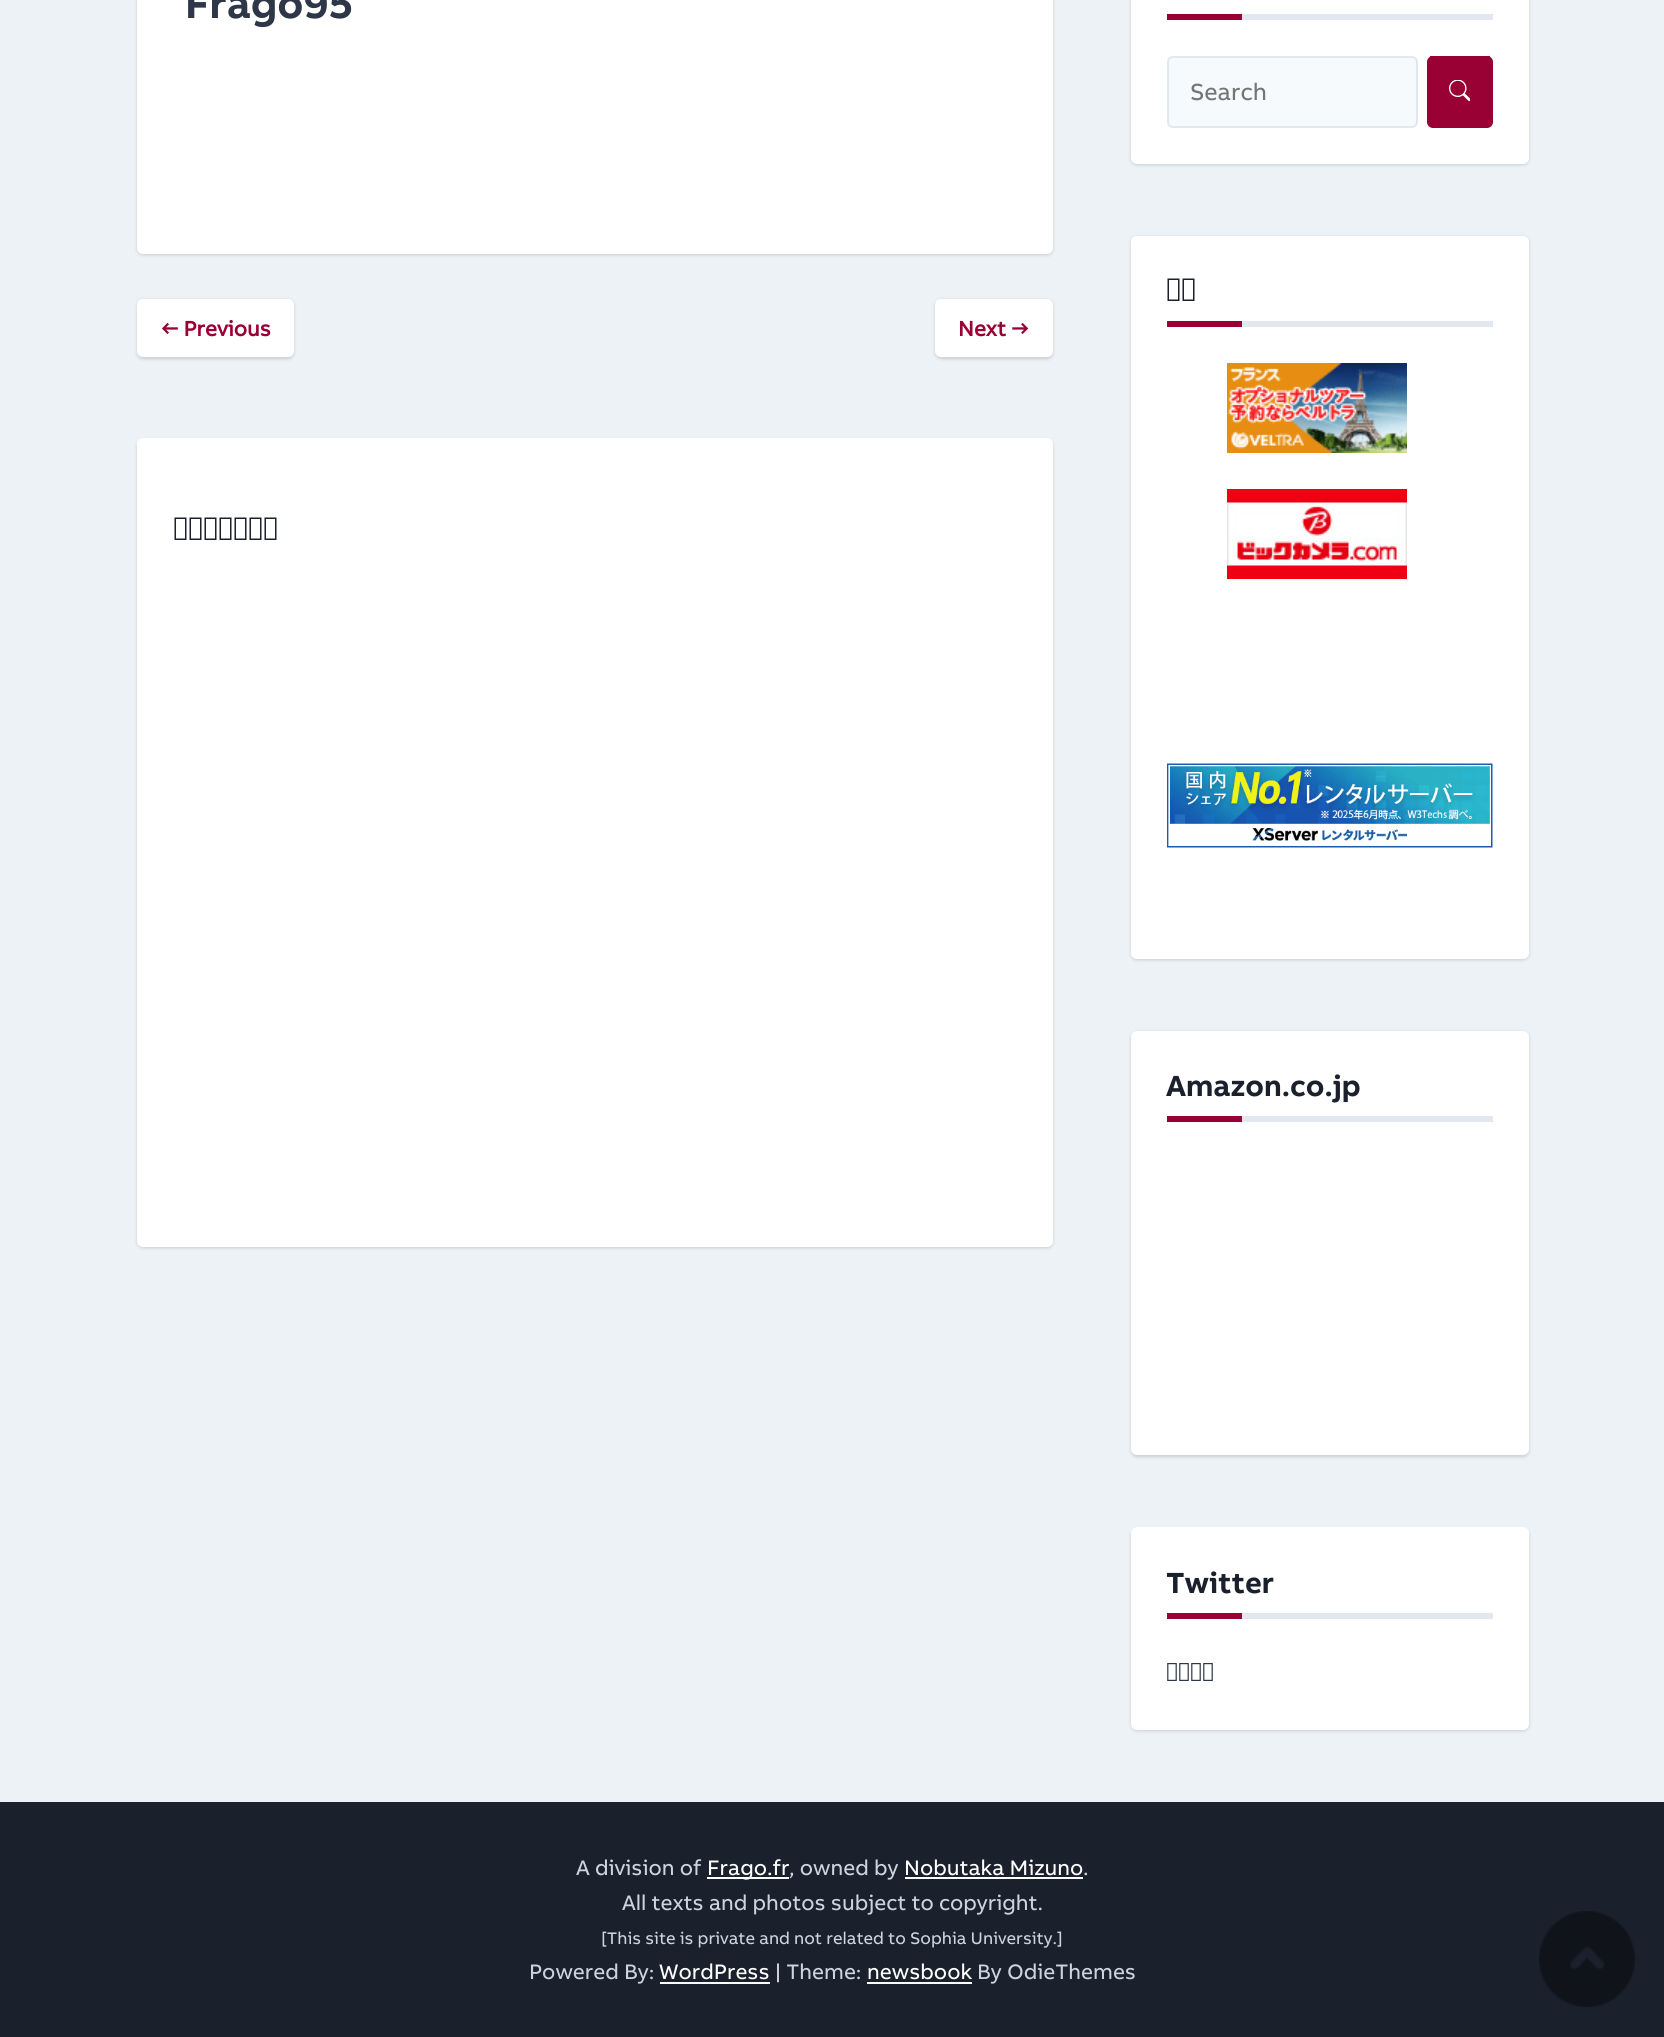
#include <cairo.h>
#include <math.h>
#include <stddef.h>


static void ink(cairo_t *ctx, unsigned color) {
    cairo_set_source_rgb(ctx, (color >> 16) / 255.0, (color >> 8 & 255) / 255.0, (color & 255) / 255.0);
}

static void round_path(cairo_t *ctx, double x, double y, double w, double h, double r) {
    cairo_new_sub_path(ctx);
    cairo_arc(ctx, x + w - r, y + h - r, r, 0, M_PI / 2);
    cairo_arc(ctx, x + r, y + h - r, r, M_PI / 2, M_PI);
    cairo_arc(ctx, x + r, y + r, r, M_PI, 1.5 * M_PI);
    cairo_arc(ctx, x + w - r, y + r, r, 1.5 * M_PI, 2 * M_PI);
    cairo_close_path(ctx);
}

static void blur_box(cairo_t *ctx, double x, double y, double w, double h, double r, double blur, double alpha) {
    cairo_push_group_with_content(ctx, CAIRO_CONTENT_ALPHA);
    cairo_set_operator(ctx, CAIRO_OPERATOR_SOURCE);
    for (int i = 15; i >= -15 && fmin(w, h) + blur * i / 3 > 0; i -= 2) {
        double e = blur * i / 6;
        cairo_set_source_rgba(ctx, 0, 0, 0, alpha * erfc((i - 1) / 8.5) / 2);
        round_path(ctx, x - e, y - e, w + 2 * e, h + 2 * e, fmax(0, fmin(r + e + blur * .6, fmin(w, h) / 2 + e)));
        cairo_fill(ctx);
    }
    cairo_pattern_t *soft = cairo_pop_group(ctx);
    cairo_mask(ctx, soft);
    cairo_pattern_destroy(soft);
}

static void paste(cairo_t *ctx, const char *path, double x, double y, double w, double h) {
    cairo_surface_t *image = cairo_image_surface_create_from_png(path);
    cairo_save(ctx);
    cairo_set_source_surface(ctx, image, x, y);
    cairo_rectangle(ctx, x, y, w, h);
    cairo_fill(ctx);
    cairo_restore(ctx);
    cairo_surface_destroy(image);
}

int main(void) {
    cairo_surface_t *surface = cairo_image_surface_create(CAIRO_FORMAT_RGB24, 1664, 2037);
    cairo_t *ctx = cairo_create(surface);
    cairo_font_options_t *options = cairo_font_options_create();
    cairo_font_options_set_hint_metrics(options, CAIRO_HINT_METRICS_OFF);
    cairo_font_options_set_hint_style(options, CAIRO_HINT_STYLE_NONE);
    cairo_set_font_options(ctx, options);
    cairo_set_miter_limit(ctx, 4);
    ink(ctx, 0xEDF2F7);
    cairo_paint(ctx);
    ink(ctx, 0x000000);
    blur_box(ctx, 137, -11, 916, 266, 6, 1.5, 0.06);
    blur_box(ctx, 137, -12, 916, 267, 6, 2, 0.1);
    ink(ctx, 0xFFFFFF);
    round_path(ctx, 137, -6, 916, 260, 6);
    cairo_fill(ctx);
    cairo_select_font_face(ctx, "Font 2", CAIRO_FONT_SLANT_NORMAL, CAIRO_FONT_WEIGHT_BOLD);
    cairo_set_font_size(ctx, 42);
    ink(ctx, 0x2D3748);
    cairo_move_to(ctx, 185, 18);
    cairo_show_text(ctx, "Frago95");
    ink(ctx, 0x000000);
    blur_box(ctx, 137, 300, 157, 59, 6, 1.5, 0.06);
    blur_box(ctx, 137, 300, 157, 59, 6, 2, 0.1);
    ink(ctx, 0xFFFFFF);
    round_path(ctx, 137, 299, 157, 58, 6);
    cairo_fill(ctx);
    cairo_select_font_face(ctx, "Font", CAIRO_FONT_SLANT_NORMAL, CAIRO_FONT_WEIGHT_BOLD);
    cairo_set_font_size(ctx, 21.6);
    ink(ctx, 0x990033);
    cairo_move_to(ctx, 161, 336);
    cairo_show_text(ctx, "← Previous");
    ink(ctx, 0x000000);
    blur_box(ctx, 935, 300, 118, 59, 6, 1.5, 0.06);
    blur_box(ctx, 935, 300, 118, 59, 6, 2, 0.1);
    ink(ctx, 0xFFFFFF);
    round_path(ctx, 935, 299, 118, 58, 6);
    cairo_fill(ctx);
    ink(ctx, 0x990033);
    cairo_move_to(ctx, 958, 336);
    cairo_show_text(ctx, "Next →");
    ink(ctx, 0x000000);
    blur_box(ctx, 137, 440, 916, 808, 6, 1.5, 0.06);
    blur_box(ctx, 137, 440, 916, 808, 6, 2, 0.1);
    ink(ctx, 0xFFFFFF);
    round_path(ctx, 137, 438, 916, 809, 6);
    cairo_fill(ctx);
    cairo_select_font_face(ctx, "Font 2", CAIRO_FONT_SLANT_NORMAL, CAIRO_FONT_WEIGHT_BOLD);
    cairo_set_font_size(ctx, 30);
    ink(ctx, 0x1A202C);
    cairo_move_to(ctx, 173, 540);
    cairo_show_text(ctx, "コメントを残す");
    ink(ctx, 0x000000);
    blur_box(ctx, 1131, -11, 398, 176, 6, 1.5, 0.06);
    blur_box(ctx, 1131, -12, 398, 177, 6, 2, 0.1);
    ink(ctx, 0xFFFFFF);
    round_path(ctx, 1131, -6, 398, 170, 6);
    cairo_fill(ctx);
    ink(ctx, 0xE2E8F0);
    cairo_rectangle(ctx, 1242, 14, 251, 6);
    cairo_fill(ctx);
    ink(ctx, 0x990033);
    cairo_rectangle(ctx, 1167, 14, 75, 6);
    cairo_fill(ctx);
    ink(ctx, 0xF7FAFC);
    round_path(ctx, 1168, 57, 249, 70, 5);
    cairo_fill_preserve(ctx);
    ink(ctx, 0xE2E8F0);
    cairo_stroke(ctx);
    cairo_select_font_face(ctx, "Font", CAIRO_FONT_SLANT_NORMAL, CAIRO_FONT_WEIGHT_NORMAL);
    cairo_set_font_size(ctx, 24);
    ink(ctx, 0x757575);
    cairo_move_to(ctx, 1190, 100);
    cairo_show_text(ctx, "Search");
    ink(ctx, 0x990033);
    round_path(ctx, 1427, 56, 66, 72, 6);
    cairo_fill(ctx);
    cairo_rectangle(ctx, 1430, 56, 60, 1);
    cairo_fill(ctx);
    paste(ctx, "media/1.png", 1449, 80, 21, 21);
    ink(ctx, 0x000000);
    blur_box(ctx, 1131, 237, 398, 723, 6, 1.5, 0.06);
    blur_box(ctx, 1131, 237, 398, 723, 6, 2, 0.1);
    ink(ctx, 0xFFFFFF);
    round_path(ctx, 1131, 236, 398, 723, 6);
    cairo_fill(ctx);
    ink(ctx, 0xE2E8F0);
    cairo_rectangle(ctx, 1242, 321, 251, 6);
    cairo_fill(ctx);
    cairo_select_font_face(ctx, "Font 2", CAIRO_FONT_SLANT_NORMAL, CAIRO_FONT_WEIGHT_BOLD);
    cairo_set_font_size(ctx, 30);
    ink(ctx, 0x1A202C);
    cairo_move_to(ctx, 1166, 301);
    cairo_show_text(ctx, "広告");
    ink(ctx, 0x990033);
    cairo_rectangle(ctx, 1167, 321, 75, 6);
    cairo_fill(ctx);
    paste(ctx, "media/2.png", 1227, 363, 180, 90);
    paste(ctx, "media/3.png", 1227, 489, 180, 90);
    paste(ctx, "media/4.png", 1167, 763, 326, 85);
    ink(ctx, 0x000000);
    blur_box(ctx, 1131, 1032, 398, 425, 6, 1.5, 0.06);
    blur_box(ctx, 1131, 1032, 398, 425, 6, 2, 0.1);
    ink(ctx, 0xFFFFFF);
    round_path(ctx, 1131, 1031, 398, 424, 6);
    cairo_fill(ctx);
    ink(ctx, 0xE2E8F0);
    cairo_rectangle(ctx, 1242, 1116, 251, 6);
    cairo_fill(ctx);
    ink(ctx, 0x1A202C);
    cairo_move_to(ctx, 1166, 1096);
    cairo_show_text(ctx, "Amazon.co.jp");
    ink(ctx, 0x990033);
    cairo_rectangle(ctx, 1167, 1116, 75, 6);
    cairo_fill(ctx);
    ink(ctx, 0x000000);
    blur_box(ctx, 1131, 1529, 398, 202, 6, 1.5, 0.06);
    blur_box(ctx, 1131, 1529, 398, 202, 6, 2, 0.1);
    ink(ctx, 0xFFFFFF);
    round_path(ctx, 1131, 1527, 398, 203, 6);
    cairo_fill(ctx);
    ink(ctx, 0xE2E8F0);
    cairo_rectangle(ctx, 1242, 1613, 251, 6);
    cairo_fill(ctx);
    ink(ctx, 0x1A202C);
    cairo_move_to(ctx, 1166, 1593);
    cairo_show_text(ctx, "Twitter");
    ink(ctx, 0x990033);
    cairo_rectangle(ctx, 1167, 1613, 75, 6);
    cairo_fill(ctx);
    cairo_select_font_face(ctx, "Font", CAIRO_FONT_SLANT_NORMAL, CAIRO_FONT_WEIGHT_NORMAL);
    cairo_set_font_size(ctx, 24);
    ink(ctx, 0x2D3748);
    cairo_move_to(ctx, 1166, 1681);
    cairo_show_text(ctx, "ツイート");
    ink(ctx, 0x1A202C);
    cairo_rectangle(ctx, 0, 1802, 1664, 235);
    cairo_fill(ctx);
    cairo_set_font_size(ctx, 21.6);
    ink(ctx, 0xCBD5E0);
    cairo_move_to(ctx, 576, 1875);
    cairo_show_text(ctx, "A division of");
    ink(ctx, 0xFFFFFF);
    cairo_rectangle(ctx, 707, 1877, 82, 2);
    cairo_fill(ctx);
    cairo_move_to(ctx, 707, 1875);
    cairo_show_text(ctx, "Frago.fr");
    ink(ctx, 0xCBD5E0);
    cairo_move_to(ctx, 789, 1875);
    cairo_show_text(ctx, ", owned by");
    ink(ctx, 0xFFFFFF);
    cairo_move_to(ctx, 904, 1875);
    cairo_show_text(ctx, "Nobutaka Mizuno");
    cairo_rectangle(ctx, 905, 1877, 178, 2);
    cairo_fill(ctx);
    ink(ctx, 0xCBD5E0);
    cairo_move_to(ctx, 1083, 1875);
    cairo_show_text(ctx, ".");
    cairo_move_to(ctx, 622, 1910);
    cairo_show_text(ctx, "All texts and photos subject to copyright.");
    cairo_set_font_size(ctx, 17.25);
    cairo_move_to(ctx, 601, 1944);
    cairo_show_text(ctx, "[This site is private and not related to Sophia University.]");
    cairo_set_font_size(ctx, 21.6);
    cairo_move_to(ctx, 529, 1979);
    cairo_show_text(ctx, "Powered By:");
    ink(ctx, 0xFFFFFF);
    cairo_move_to(ctx, 659, 1979);
    cairo_show_text(ctx, "WordPress");
    cairo_rectangle(ctx, 660, 1982, 110, 2);
    cairo_fill(ctx);
    ink(ctx, 0xCBD5E0);
    cairo_move_to(ctx, 775, 1979);
    cairo_show_text(ctx, "| Theme:");
    ink(ctx, 0xFFFFFF);
    cairo_move_to(ctx, 867, 1979);
    cairo_show_text(ctx, "newsbook");
    cairo_rectangle(ctx, 867, 1982, 105, 2);
    cairo_fill(ctx);
    ink(ctx, 0xCBD5E0);
    cairo_move_to(ctx, 977, 1979);
    cairo_show_text(ctx, "By OdieThemes");
    paste(ctx, "media/5.png", 1539, 1911, 96, 96);
    cairo_surface_write_to_png(surface, "image.png");
    cairo_font_options_destroy(options);
    cairo_destroy(ctx);
    cairo_surface_destroy(surface);
    return 0;
}
